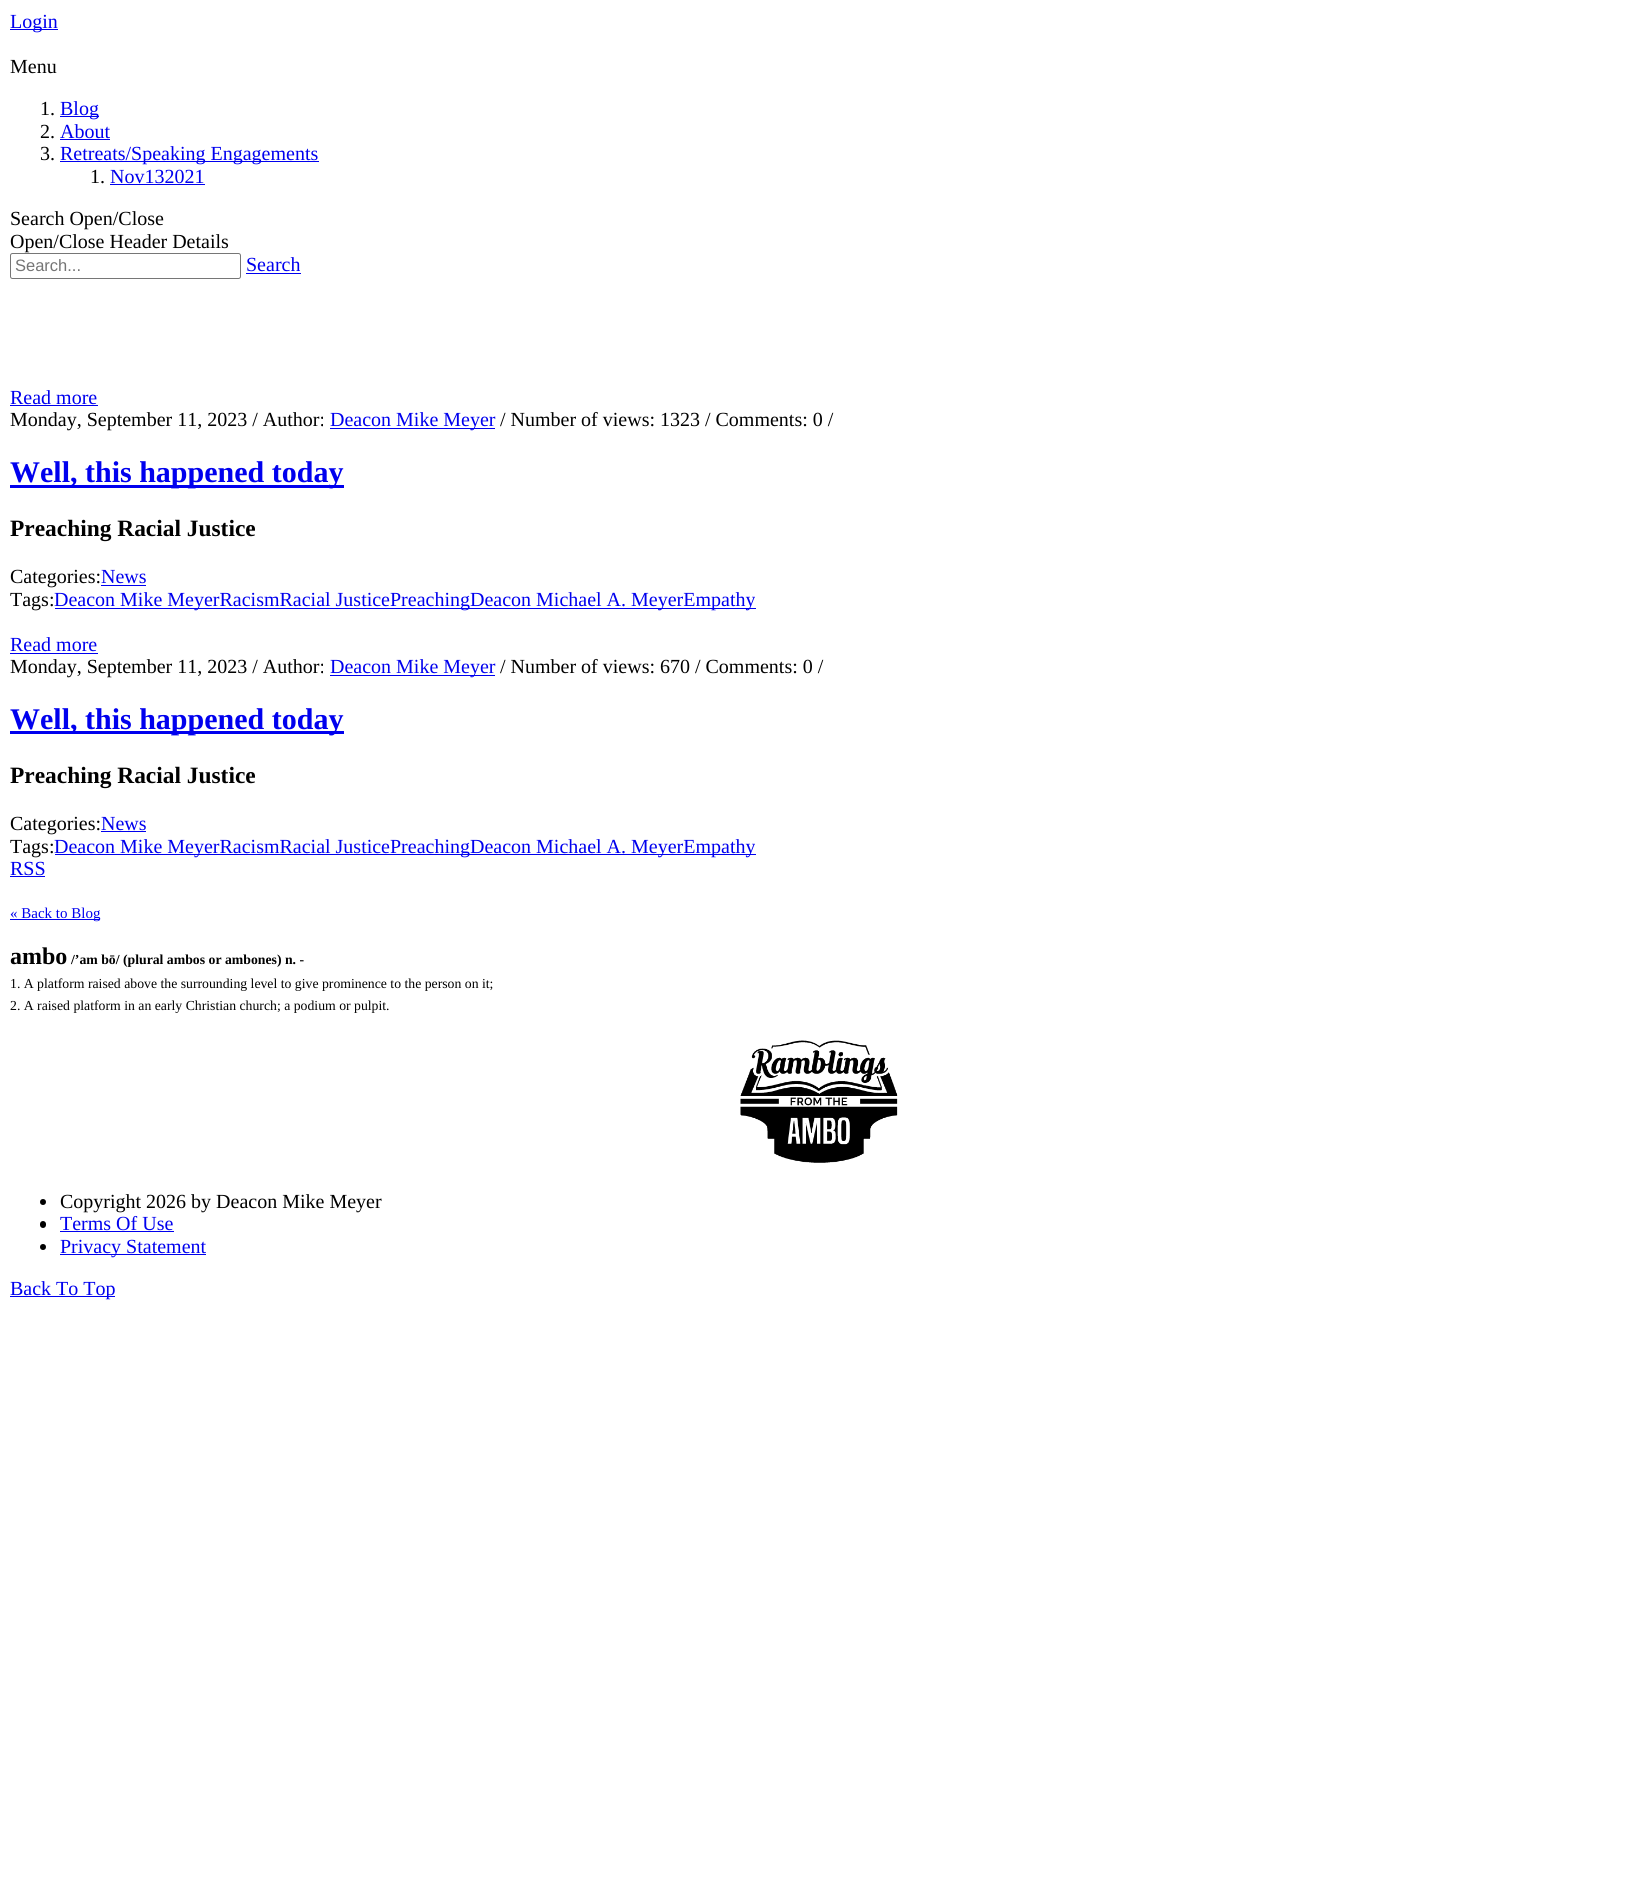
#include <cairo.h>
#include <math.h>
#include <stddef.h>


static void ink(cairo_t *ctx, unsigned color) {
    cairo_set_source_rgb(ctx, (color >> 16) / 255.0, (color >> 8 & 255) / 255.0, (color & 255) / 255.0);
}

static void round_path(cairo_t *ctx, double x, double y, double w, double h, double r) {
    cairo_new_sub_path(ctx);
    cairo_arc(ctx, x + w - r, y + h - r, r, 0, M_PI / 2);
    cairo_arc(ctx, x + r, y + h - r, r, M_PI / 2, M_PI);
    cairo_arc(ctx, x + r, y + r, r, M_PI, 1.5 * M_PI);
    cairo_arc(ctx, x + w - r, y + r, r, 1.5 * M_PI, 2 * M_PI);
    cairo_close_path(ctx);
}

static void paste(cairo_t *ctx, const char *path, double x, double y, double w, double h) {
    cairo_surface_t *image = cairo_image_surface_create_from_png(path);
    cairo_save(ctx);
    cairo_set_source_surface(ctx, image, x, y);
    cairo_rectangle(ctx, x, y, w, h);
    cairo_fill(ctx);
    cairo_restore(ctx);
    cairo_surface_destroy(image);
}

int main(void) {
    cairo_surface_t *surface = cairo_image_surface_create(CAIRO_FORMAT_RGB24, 1636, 1903);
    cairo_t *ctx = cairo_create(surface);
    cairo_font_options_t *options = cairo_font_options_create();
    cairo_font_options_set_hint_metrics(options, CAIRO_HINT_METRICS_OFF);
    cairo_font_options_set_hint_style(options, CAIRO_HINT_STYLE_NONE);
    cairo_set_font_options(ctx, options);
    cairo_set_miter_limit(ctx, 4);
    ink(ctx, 0xFFFFFF);
    cairo_paint(ctx);
    ink(ctx, 0x0000EE);
    cairo_rectangle(ctx, 10, 29, 48, 1);
    cairo_fill(ctx);
    cairo_select_font_face(ctx, "Liberation Serif", CAIRO_FONT_SLANT_NORMAL, CAIRO_FONT_WEIGHT_NORMAL);
    cairo_set_font_size(ctx, 20);
    cairo_move_to(ctx, 10, 28);
    cairo_show_text(ctx, "Login");
    ink(ctx, 0x000000);
    cairo_move_to(ctx, 10, 73);
    cairo_show_text(ctx, "Menu");
    cairo_move_to(ctx, 40, 115);
    cairo_show_text(ctx, "1.");
    ink(ctx, 0x0000EE);
    cairo_rectangle(ctx, 60, 116, 39, 1);
    cairo_fill(ctx);
    cairo_move_to(ctx, 60, 115);
    cairo_show_text(ctx, "Blog");
    ink(ctx, 0x000000);
    cairo_move_to(ctx, 40, 138);
    cairo_show_text(ctx, "2.");
    ink(ctx, 0x0000EE);
    cairo_move_to(ctx, 60, 138);
    cairo_show_text(ctx, "About");
    cairo_rectangle(ctx, 60, 139, 50, 1);
    cairo_fill(ctx);
    ink(ctx, 0x000000);
    cairo_move_to(ctx, 40, 160);
    cairo_show_text(ctx, "3.");
    ink(ctx, 0x0000EE);
    cairo_rectangle(ctx, 60, 161, 259, 1);
    cairo_fill(ctx);
    cairo_move_to(ctx, 60, 160);
    cairo_show_text(ctx, "Retreats/Speaking Engagements");
    ink(ctx, 0x000000);
    cairo_move_to(ctx, 90, 183);
    cairo_show_text(ctx, "1.");
    ink(ctx, 0x0000EE);
    cairo_move_to(ctx, 110, 183);
    cairo_show_text(ctx, "Nov132021");
    cairo_rectangle(ctx, 110, 184, 95, 1);
    cairo_fill(ctx);
    ink(ctx, 0x000000);
    cairo_move_to(ctx, 10, 225);
    cairo_show_text(ctx, "Search Open/Close");
    cairo_move_to(ctx, 10, 248);
    cairo_show_text(ctx, "Open/Close Header Details");
    round_path(ctx, 10.5, 253.5, 230, 25, 2);
    ink(ctx, 0x767676);
    cairo_set_line_width(ctx, 1);
    cairo_stroke(ctx);
    cairo_select_font_face(ctx, "Liberation Sans", CAIRO_FONT_SLANT_NORMAL, CAIRO_FONT_WEIGHT_NORMAL);
    cairo_set_font_size(ctx, 16.5);
    ink(ctx, 0x757575);
    cairo_move_to(ctx, 15, 271);
    cairo_show_text(ctx, "Search...");
    cairo_select_font_face(ctx, "Liberation Serif", CAIRO_FONT_SLANT_NORMAL, CAIRO_FONT_WEIGHT_NORMAL);
    cairo_set_font_size(ctx, 20);
    ink(ctx, 0x0000EE);
    cairo_move_to(ctx, 246, 271);
    cairo_show_text(ctx, "Search");
    cairo_rectangle(ctx, 246, 273, 55, 1);
    cairo_fill(ctx);
    cairo_move_to(ctx, 10, 404);
    cairo_show_text(ctx, "Read more");
    cairo_rectangle(ctx, 10, 405, 88, 1);
    cairo_fill(ctx);
    ink(ctx, 0x000000);
    cairo_move_to(ctx, 10, 426);
    cairo_show_text(ctx, "Monday, September 11, 2023 / Author:");
    ink(ctx, 0x0000EE);
    cairo_rectangle(ctx, 330, 428, 165, 1);
    cairo_fill(ctx);
    cairo_move_to(ctx, 330, 426);
    cairo_show_text(ctx, "Deacon Mike Meyer");
    ink(ctx, 0x000000);
    cairo_move_to(ctx, 500, 426);
    cairo_show_text(ctx, "/ Number of views: 1323 / Comments: 0 /");
    ink(ctx, 0x0000EE);
    cairo_rectangle(ctx, 10, 485, 334, 3);
    cairo_fill(ctx);
    cairo_select_font_face(ctx, "Liberation Serif", CAIRO_FONT_SLANT_NORMAL, CAIRO_FONT_WEIGHT_BOLD);
    cairo_set_font_size(ctx, 30);
    cairo_move_to(ctx, 10, 482);
    cairo_show_text(ctx, "Well, this happened today");
    cairo_set_font_size(ctx, 23.4);
    ink(ctx, 0x000000);
    cairo_move_to(ctx, 10, 536);
    cairo_show_text(ctx, "Preaching Racial Justice");
    cairo_select_font_face(ctx, "Liberation Serif", CAIRO_FONT_SLANT_NORMAL, CAIRO_FONT_WEIGHT_NORMAL);
    cairo_set_font_size(ctx, 20);
    cairo_move_to(ctx, 10, 583);
    cairo_show_text(ctx, "Categories:");
    ink(ctx, 0x0000EE);
    cairo_move_to(ctx, 101, 583);
    cairo_show_text(ctx, "News");
    cairo_rectangle(ctx, 101, 585, 45, 1);
    cairo_fill(ctx);
    ink(ctx, 0x000000);
    cairo_move_to(ctx, 10, 606);
    cairo_show_text(ctx, "Tags:");
    ink(ctx, 0x0000EE);
    cairo_rectangle(ctx, 55, 608, 415, 1);
    cairo_fill(ctx);
    cairo_move_to(ctx, 54, 606);
    cairo_show_text(ctx, "Deacon Mike MeyerRacismRacial JusticePreaching");
    cairo_rectangle(ctx, 470, 608, 286, 1);
    cairo_fill(ctx);
    cairo_move_to(ctx, 470, 606);
    cairo_show_text(ctx, "Deacon Michael A. MeyerEmpathy");
    cairo_move_to(ctx, 10, 651);
    cairo_show_text(ctx, "Read more");
    cairo_rectangle(ctx, 10, 653, 88, 1);
    cairo_fill(ctx);
    ink(ctx, 0x000000);
    cairo_move_to(ctx, 10, 673);
    cairo_show_text(ctx, "Monday, September 11, 2023 / Author:");
    ink(ctx, 0x0000EE);
    cairo_rectangle(ctx, 330, 675, 165, 1);
    cairo_fill(ctx);
    cairo_move_to(ctx, 330, 673);
    cairo_show_text(ctx, "Deacon Mike Meyer");
    ink(ctx, 0x000000);
    cairo_move_to(ctx, 500, 673);
    cairo_show_text(ctx, "/ Number of views: 670 / Comments: 0 /");
    ink(ctx, 0x0000EE);
    cairo_rectangle(ctx, 10, 731, 334, 3);
    cairo_fill(ctx);
    cairo_select_font_face(ctx, "Liberation Serif", CAIRO_FONT_SLANT_NORMAL, CAIRO_FONT_WEIGHT_BOLD);
    cairo_set_font_size(ctx, 30);
    cairo_move_to(ctx, 10, 729);
    cairo_show_text(ctx, "Well, this happened today");
    cairo_set_font_size(ctx, 23.4);
    ink(ctx, 0x000000);
    cairo_move_to(ctx, 10, 783);
    cairo_show_text(ctx, "Preaching Racial Justice");
    cairo_select_font_face(ctx, "Liberation Serif", CAIRO_FONT_SLANT_NORMAL, CAIRO_FONT_WEIGHT_NORMAL);
    cairo_set_font_size(ctx, 20);
    cairo_move_to(ctx, 10, 830);
    cairo_show_text(ctx, "Categories:");
    ink(ctx, 0x0000EE);
    cairo_move_to(ctx, 101, 830);
    cairo_show_text(ctx, "News");
    cairo_rectangle(ctx, 101, 831, 45, 1);
    cairo_fill(ctx);
    ink(ctx, 0x000000);
    cairo_move_to(ctx, 10, 853);
    cairo_show_text(ctx, "Tags:");
    ink(ctx, 0x0000EE);
    cairo_rectangle(ctx, 55, 854, 415, 1);
    cairo_fill(ctx);
    cairo_move_to(ctx, 54, 853);
    cairo_show_text(ctx, "Deacon Mike MeyerRacismRacial JusticePreaching");
    cairo_rectangle(ctx, 470, 854, 286, 1);
    cairo_fill(ctx);
    cairo_move_to(ctx, 470, 853);
    cairo_show_text(ctx, "Deacon Michael A. MeyerEmpathy");
    cairo_move_to(ctx, 10, 875);
    cairo_show_text(ctx, "RSS");
    cairo_rectangle(ctx, 10, 876, 35, 1);
    cairo_fill(ctx);
    cairo_rectangle(ctx, 10, 919, 90, 1);
    cairo_fill(ctx);
    cairo_set_font_size(ctx, 15);
    cairo_move_to(ctx, 10, 918);
    cairo_show_text(ctx, "« Back to Blog");
    cairo_select_font_face(ctx, "Liberation Serif", CAIRO_FONT_SLANT_NORMAL, CAIRO_FONT_WEIGHT_BOLD);
    cairo_set_font_size(ctx, 24);
    ink(ctx, 0x000000);
    cairo_move_to(ctx, 10, 964);
    cairo_show_text(ctx, "ambo");
    cairo_set_font_size(ctx, 13.75);
    cairo_move_to(ctx, 71, 964);
    cairo_show_text(ctx, "/’am bō/ (plural ambos or ambones) n. -");
    cairo_select_font_face(ctx, "Liberation Serif", CAIRO_FONT_SLANT_NORMAL, CAIRO_FONT_WEIGHT_NORMAL);
    cairo_move_to(ctx, 10, 988);
    cairo_show_text(ctx, "1. A platform raised above the surrounding level to give prominence to the person on it;");
    cairo_move_to(ctx, 10, 1010);
    cairo_show_text(ctx, "2. A raised platform in an early Christian church; a podium or pulpit.");
    paste(ctx, "media/1.png", 740, 1040, 158, 123);
    cairo_arc(ctx, 43, 1202, 3, 0, 2 * M_PI);
    cairo_fill(ctx);
    cairo_set_font_size(ctx, 20);
    cairo_move_to(ctx, 60, 1208);
    cairo_show_text(ctx, "Copyright 2026 by Deacon Mike Meyer");
    round_path(ctx, 40, 1221, 6, 7, 3);
    cairo_fill(ctx);
    ink(ctx, 0x0000EE);
    cairo_move_to(ctx, 60, 1230);
    cairo_show_text(ctx, "Terms Of Use");
    cairo_rectangle(ctx, 60, 1231, 114, 1);
    cairo_fill(ctx);
    ink(ctx, 0x000000);
    cairo_arc(ctx, 43, 1247, 3, 0, 2 * M_PI);
    cairo_fill(ctx);
    ink(ctx, 0x0000EE);
    cairo_rectangle(ctx, 60, 1254, 146, 1);
    cairo_fill(ctx);
    cairo_move_to(ctx, 60, 1253);
    cairo_show_text(ctx, "Privacy Statement");
    cairo_rectangle(ctx, 10, 1296, 105, 1);
    cairo_fill(ctx);
    cairo_move_to(ctx, 10, 1295);
    cairo_show_text(ctx, "Back To Top");
    cairo_surface_write_to_png(surface, "image.png");
    cairo_font_options_destroy(options);
    cairo_destroy(ctx);
    cairo_surface_destroy(surface);
    return 0;
}
